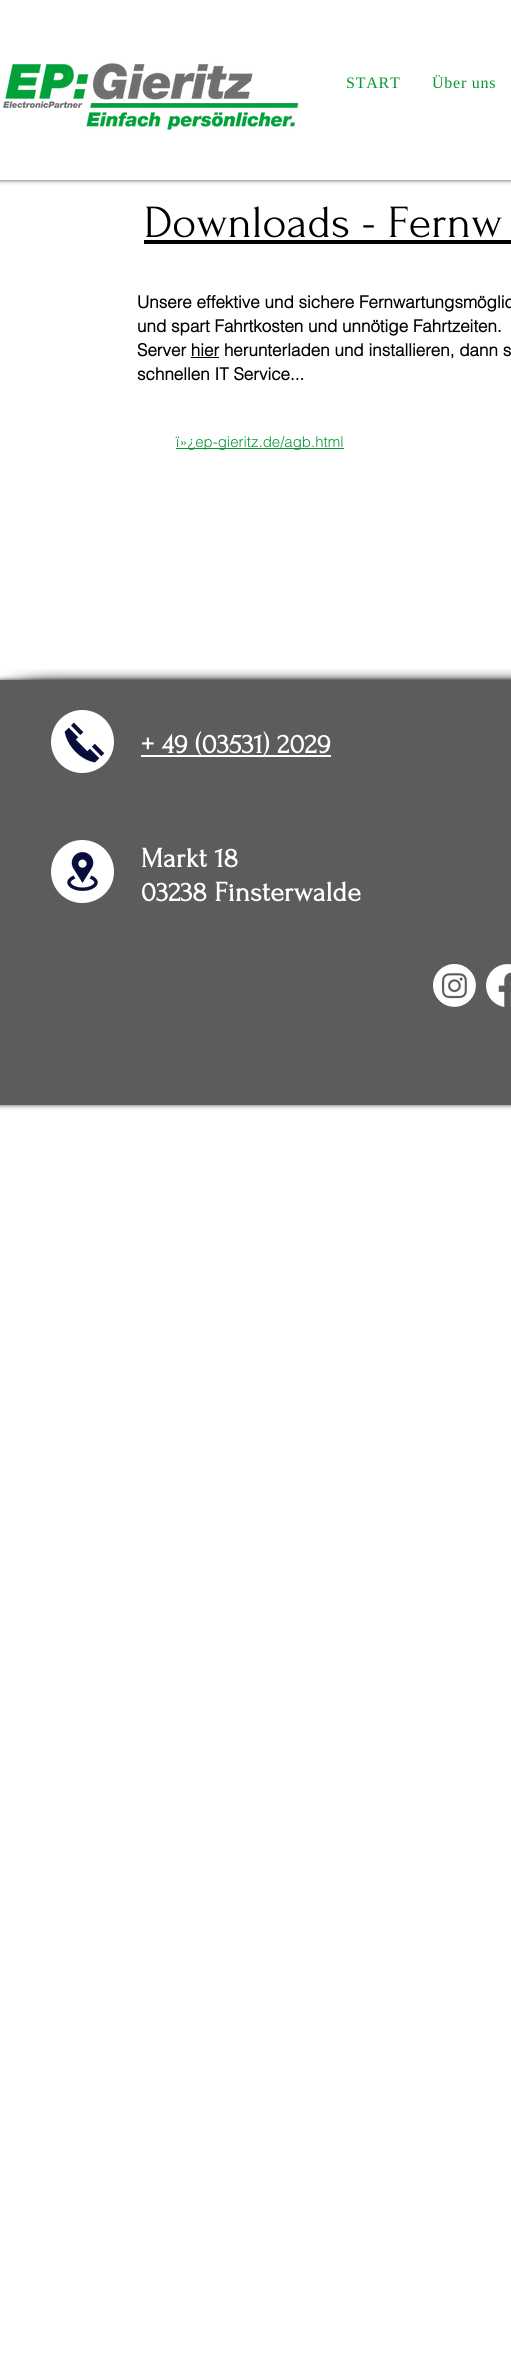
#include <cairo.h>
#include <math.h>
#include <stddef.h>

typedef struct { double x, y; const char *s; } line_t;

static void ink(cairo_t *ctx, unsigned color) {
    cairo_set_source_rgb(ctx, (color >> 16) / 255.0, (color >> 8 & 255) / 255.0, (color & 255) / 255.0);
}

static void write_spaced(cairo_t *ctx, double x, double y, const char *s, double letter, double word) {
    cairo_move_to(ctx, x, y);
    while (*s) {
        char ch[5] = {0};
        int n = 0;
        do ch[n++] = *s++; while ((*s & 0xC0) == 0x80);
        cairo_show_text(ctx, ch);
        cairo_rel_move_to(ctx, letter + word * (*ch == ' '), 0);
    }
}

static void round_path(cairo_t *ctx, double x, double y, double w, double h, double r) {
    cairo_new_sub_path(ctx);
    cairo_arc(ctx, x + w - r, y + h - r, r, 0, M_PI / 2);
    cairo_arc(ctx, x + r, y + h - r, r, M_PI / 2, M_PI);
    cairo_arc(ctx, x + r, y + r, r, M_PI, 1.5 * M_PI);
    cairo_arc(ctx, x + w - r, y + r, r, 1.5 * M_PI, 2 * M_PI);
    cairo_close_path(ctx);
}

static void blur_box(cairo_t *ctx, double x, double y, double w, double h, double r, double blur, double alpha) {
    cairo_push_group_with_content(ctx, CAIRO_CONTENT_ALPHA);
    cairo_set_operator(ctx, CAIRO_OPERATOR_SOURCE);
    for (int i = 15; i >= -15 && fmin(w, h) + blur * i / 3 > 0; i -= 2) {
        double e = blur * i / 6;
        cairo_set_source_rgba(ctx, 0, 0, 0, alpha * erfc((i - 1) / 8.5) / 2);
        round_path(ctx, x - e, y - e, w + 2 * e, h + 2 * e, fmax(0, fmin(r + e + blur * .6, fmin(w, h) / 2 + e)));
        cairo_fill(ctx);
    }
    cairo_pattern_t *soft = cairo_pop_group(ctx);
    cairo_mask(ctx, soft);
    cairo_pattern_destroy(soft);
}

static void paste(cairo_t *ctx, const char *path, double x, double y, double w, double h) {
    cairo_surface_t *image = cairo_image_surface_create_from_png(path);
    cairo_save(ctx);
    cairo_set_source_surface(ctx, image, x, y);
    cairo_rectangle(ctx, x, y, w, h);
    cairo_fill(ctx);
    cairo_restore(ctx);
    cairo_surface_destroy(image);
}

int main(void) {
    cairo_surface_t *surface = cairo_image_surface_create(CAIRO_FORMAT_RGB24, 511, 2367);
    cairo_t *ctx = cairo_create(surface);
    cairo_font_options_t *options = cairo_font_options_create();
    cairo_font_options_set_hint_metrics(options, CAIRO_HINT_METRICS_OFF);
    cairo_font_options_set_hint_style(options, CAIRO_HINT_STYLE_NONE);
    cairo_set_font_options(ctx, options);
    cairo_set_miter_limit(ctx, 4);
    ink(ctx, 0xFFFFFF);
    cairo_paint(ctx);
    ink(ctx, 0x000000);
    blur_box(ctx, 0, 0, 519, 180, 0, 2.5, 0.7);
    ink(ctx, 0xFFFFFF);
    cairo_rectangle(ctx, 0, 0, 511, 180);
    cairo_fill(ctx);
    paste(ctx, "media/1.png", 3, 63, 296, 67);
    cairo_select_font_face(ctx, "Liberation Serif", CAIRO_FONT_SLANT_NORMAL, CAIRO_FONT_WEIGHT_NORMAL);
    cairo_set_font_size(ctx, 16);
    ink(ctx, 0x07962F);
    write_spaced(ctx, 346, 88, "START", 0.75, 0);
    write_spaced(ctx, 432, 88, "Über uns", 0.75, 0);
    cairo_select_font_face(ctx, "Forum", CAIRO_FONT_SLANT_NORMAL, CAIRO_FONT_WEIGHT_NORMAL);
    cairo_set_font_size(ctx, 46);
    ink(ctx, 0x000000);
    cairo_move_to(ctx, 144, 237);
    cairo_show_text(ctx, "Downloads - Fernw");
    cairo_rectangle(ctx, 144, 240, 367, 4);
    cairo_fill(ctx);
    cairo_select_font_face(ctx, "helvetica", CAIRO_FONT_SLANT_NORMAL, CAIRO_FONT_WEIGHT_BOLD);
    cairo_set_font_size(ctx, 17);
    {
        static const line_t items[] = {
            {137, 308, "Unsere effektive und sichere Fernwartungsmöglic"},
            {137, 332, "und spart Fahrtkosten und unnötige Fahrtzeiten."},
            {137, 356, "Server hier herunterladen und installieren, dann s"},
        };
        for (size_t i = 0; i < sizeof items / sizeof *items; i++) {
            cairo_move_to(ctx, items[i].x, items[i].y);
            cairo_show_text(ctx, items[i].s);
        }
    }
    cairo_rectangle(ctx, 191, 357, 28, 1);
    cairo_fill(ctx);
    cairo_move_to(ctx, 137, 380);
    cairo_show_text(ctx, "schnellen IT Service...");
    ink(ctx, 0x07962F);
    cairo_rectangle(ctx, 176, 448, 168, 1);
    cairo_fill(ctx);
    cairo_select_font_face(ctx, "helvetica Light", CAIRO_FONT_SLANT_NORMAL, CAIRO_FONT_WEIGHT_NORMAL);
    cairo_set_font_size(ctx, 15);
    cairo_move_to(ctx, 176, 447);
    cairo_show_text(ctx, "ï»¿ep-gieritz.de/agb.html");
    ink(ctx, 0x000000);
    blur_box(ctx, 0, 680, 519, 425, 0, 2.5, 0.7);
    ink(ctx, 0x5C5C5C);
    cairo_rectangle(ctx, 0, 680, 511, 425);
    cairo_fill(ctx);
    paste(ctx, "media/2.png", 3, 669, 97, 11);
    paste(ctx, "media/3.png", 100, 669, 411, 11);
    ink(ctx, 0xFFFFFF);
    cairo_new_path(ctx);
    cairo_move_to(ctx, 114, 742);
    cairo_curve_to(ctx, 114, 759, 100, 773, 82, 773);
    cairo_curve_to(ctx, 65, 773, 51, 759, 51, 742);
    cairo_curve_to(ctx, 51, 724, 65, 710, 82, 710);
    cairo_curve_to(ctx, 100, 710, 114, 724, 114, 742);
    cairo_close_path(ctx);
    cairo_fill(ctx);
    paste(ctx, "media/4.png", 64, 722, 41, 41);
    cairo_rectangle(ctx, 141, 755, 190, 2);
    cairo_fill(ctx);
    cairo_select_font_face(ctx, "Forum", CAIRO_FONT_SLANT_NORMAL, CAIRO_FONT_WEIGHT_BOLD);
    cairo_set_font_size(ctx, 28);
    write_spaced(ctx, 141, 753, "+ 49 (03531) 2029", 0.25, 0);
    cairo_new_path(ctx);
    cairo_move_to(ctx, 114, 872);
    cairo_curve_to(ctx, 114, 889, 100, 903, 82, 903);
    cairo_curve_to(ctx, 65, 903, 51, 889, 51, 872);
    cairo_curve_to(ctx, 51, 854, 65, 840, 82, 840);
    cairo_curve_to(ctx, 100, 840, 114, 854, 114, 872);
    cairo_close_path(ctx);
    cairo_fill(ctx);
    write_spaced(ctx, 141, 867, "Markt 18", 0.25, 0);
    write_spaced(ctx, 141, 901, "03238 Finsterwalde", 0.25, 0);
    paste(ctx, "media/5.png", 67, 852, 31, 39);
    paste(ctx, "media/6.png", 433, 964, 43, 43);
    paste(ctx, "media/7.png", 486, 964, 25, 43);
    cairo_surface_write_to_png(surface, "image.png");
    cairo_font_options_destroy(options);
    cairo_destroy(ctx);
    cairo_surface_destroy(surface);
    return 0;
}
